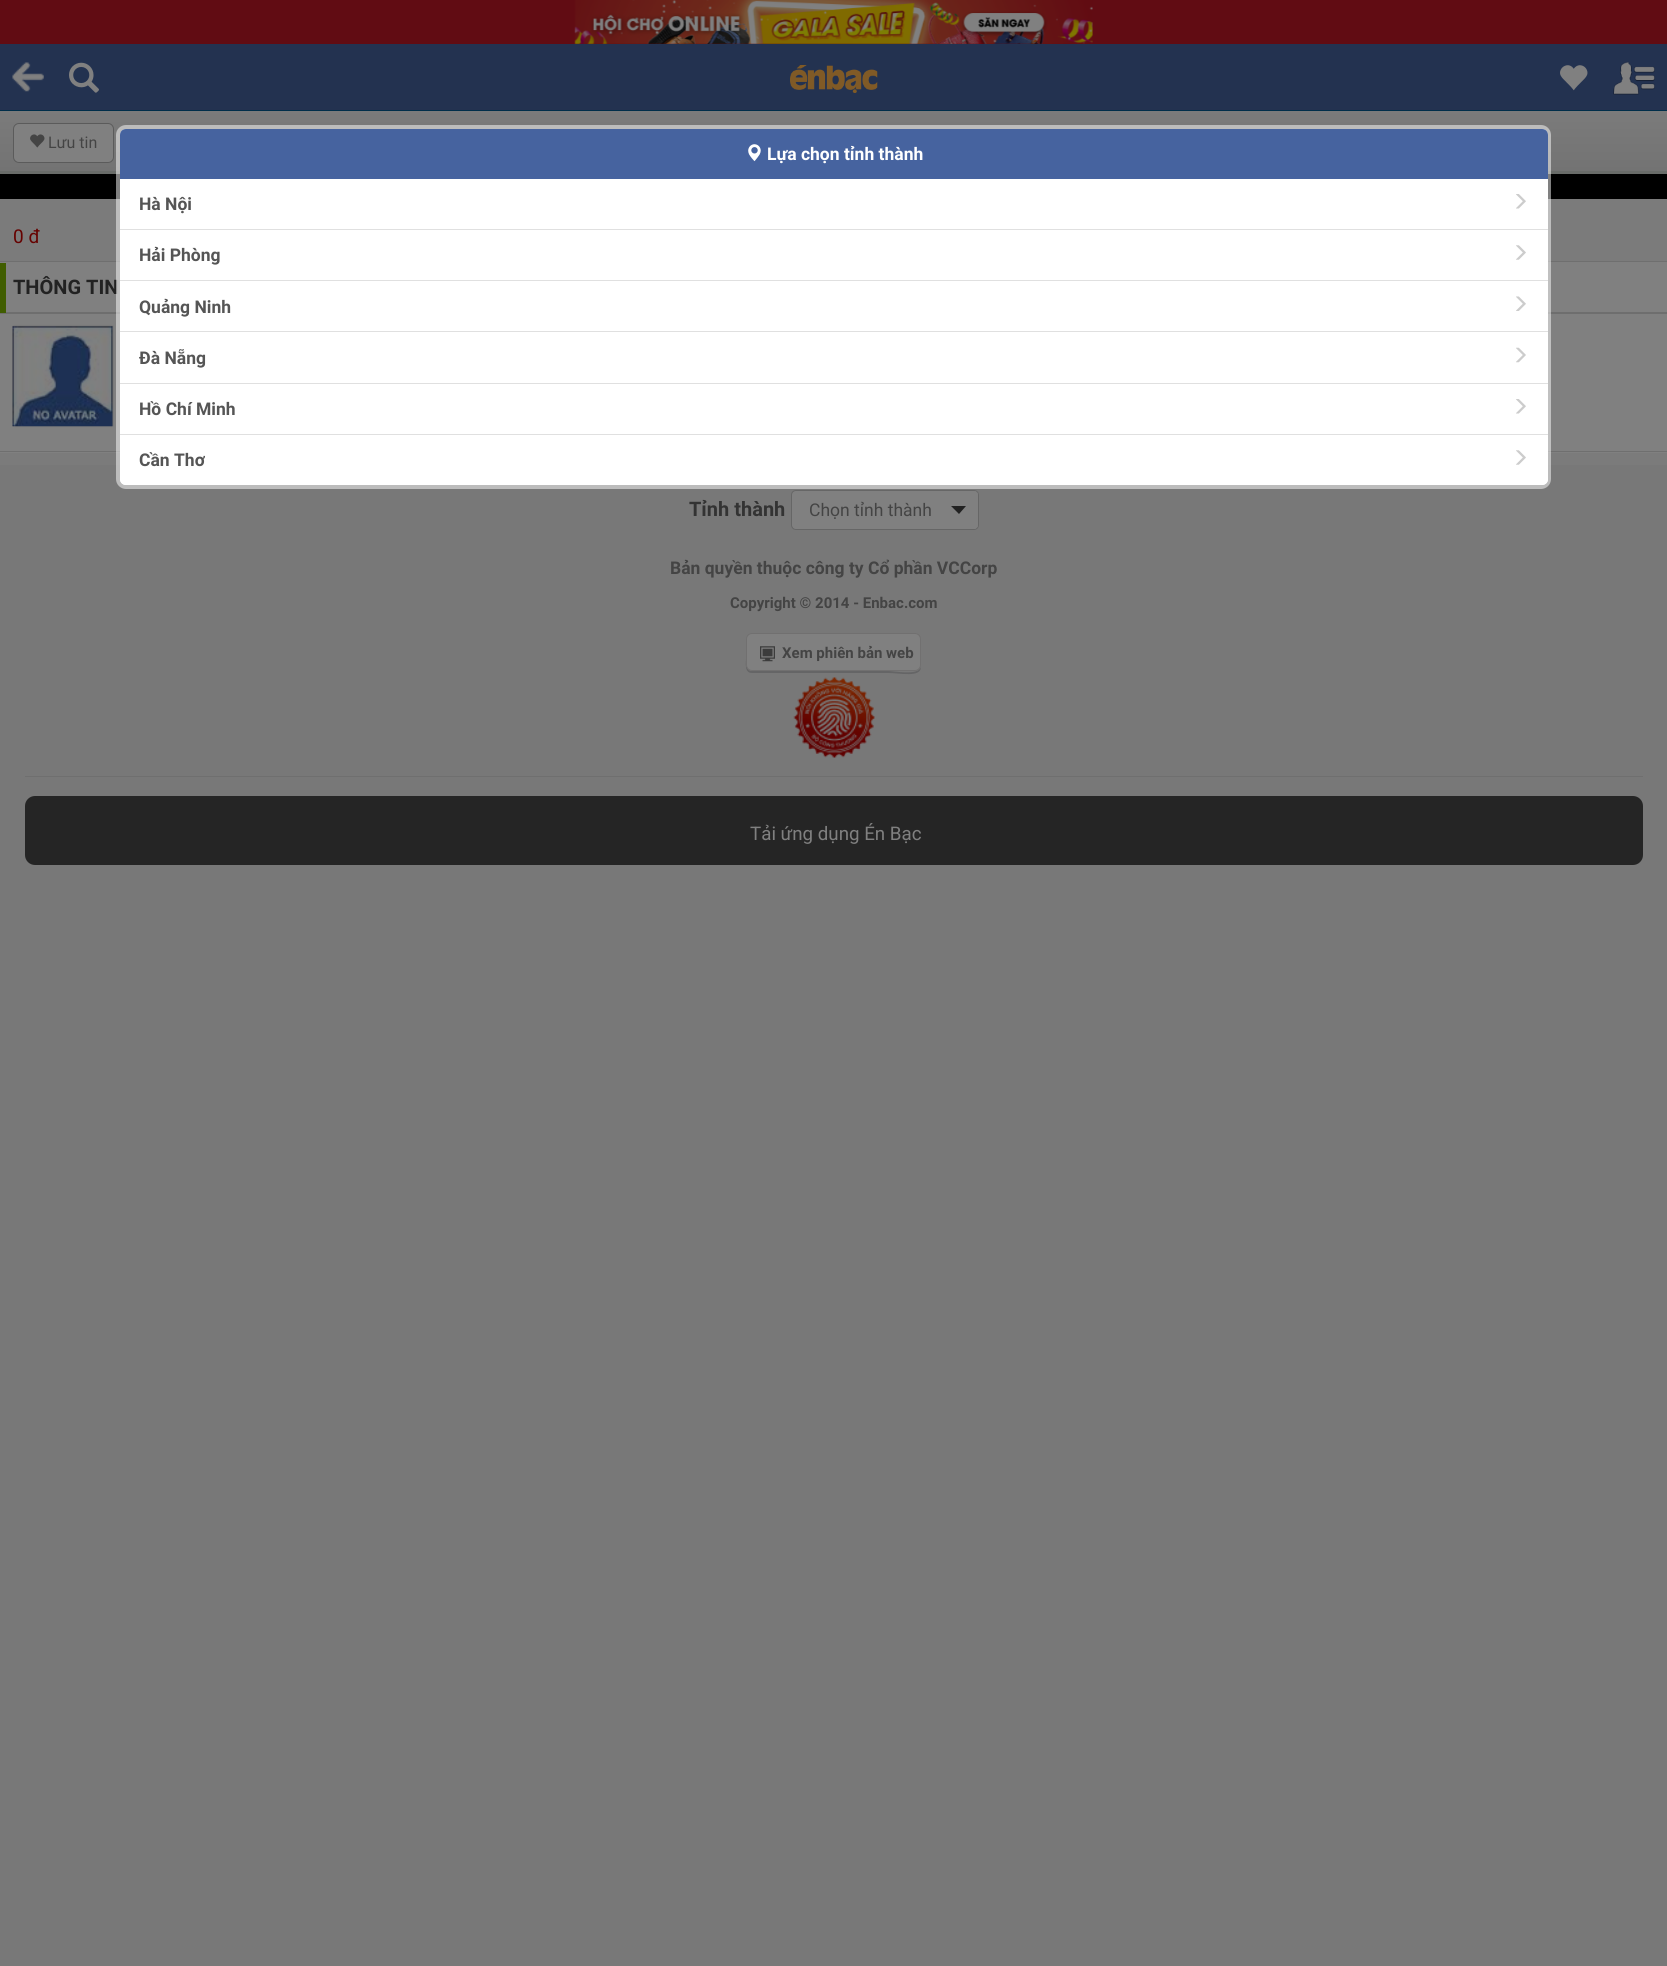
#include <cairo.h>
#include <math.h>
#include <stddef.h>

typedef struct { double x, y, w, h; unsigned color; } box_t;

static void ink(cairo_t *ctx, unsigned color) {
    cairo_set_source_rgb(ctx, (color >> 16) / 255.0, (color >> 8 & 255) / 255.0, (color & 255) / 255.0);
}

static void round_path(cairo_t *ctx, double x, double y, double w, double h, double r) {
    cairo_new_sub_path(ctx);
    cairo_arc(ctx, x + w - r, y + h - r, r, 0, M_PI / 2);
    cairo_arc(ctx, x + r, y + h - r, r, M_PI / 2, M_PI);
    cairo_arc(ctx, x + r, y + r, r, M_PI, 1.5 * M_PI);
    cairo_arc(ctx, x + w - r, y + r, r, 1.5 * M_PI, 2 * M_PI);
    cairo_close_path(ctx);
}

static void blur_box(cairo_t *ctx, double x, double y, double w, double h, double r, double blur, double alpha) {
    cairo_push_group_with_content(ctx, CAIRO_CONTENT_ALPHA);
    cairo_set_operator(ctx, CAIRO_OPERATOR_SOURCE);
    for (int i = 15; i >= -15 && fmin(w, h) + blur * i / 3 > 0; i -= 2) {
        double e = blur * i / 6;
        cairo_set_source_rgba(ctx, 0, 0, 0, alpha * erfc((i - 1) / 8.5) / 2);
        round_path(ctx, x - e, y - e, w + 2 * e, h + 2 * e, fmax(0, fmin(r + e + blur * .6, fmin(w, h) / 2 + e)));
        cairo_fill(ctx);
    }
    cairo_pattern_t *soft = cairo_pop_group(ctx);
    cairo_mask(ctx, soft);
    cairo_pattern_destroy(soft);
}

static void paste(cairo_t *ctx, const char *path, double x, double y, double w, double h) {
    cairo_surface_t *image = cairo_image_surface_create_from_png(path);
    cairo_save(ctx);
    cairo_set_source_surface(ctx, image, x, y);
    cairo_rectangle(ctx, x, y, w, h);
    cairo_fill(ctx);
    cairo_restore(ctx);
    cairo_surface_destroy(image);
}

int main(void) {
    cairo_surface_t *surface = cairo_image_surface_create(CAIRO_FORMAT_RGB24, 1667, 1966);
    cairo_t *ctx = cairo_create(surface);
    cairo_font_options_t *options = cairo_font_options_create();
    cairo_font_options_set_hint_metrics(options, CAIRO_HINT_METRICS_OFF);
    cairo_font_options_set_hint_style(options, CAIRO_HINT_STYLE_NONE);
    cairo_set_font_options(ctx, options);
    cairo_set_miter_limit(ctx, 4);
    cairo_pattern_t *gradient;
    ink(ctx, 0x787878);
    cairo_paint(ctx);
    {
        static const box_t items[] = {
            {0, 44, 1667, 66, 0x233250},
            {0, 110, 1667, 1, 0x002E4A},
            {0, 0, 1667, 44, 0x610C13},
        };
        for (size_t i = 0; i < sizeof items / sizeof *items; i++) {
            ink(ctx, items[i].color);
            cairo_rectangle(ctx, items[i].x, items[i].y, items[i].w, items[i].h);
            cairo_fill(ctx);
        }
    }
    paste(ctx, "media/1.png", 574, 0, 519, 44);
    paste(ctx, "media/2.png", 12, 62, 32, 30);
    paste(ctx, "media/3.png", 69, 62, 30, 31);
    paste(ctx, "media/4.png", 790, 65, 88, 28);
    paste(ctx, "media/5.png", 1560, 65, 28, 26);
    paste(ctx, "media/6.png", 1613, 61, 42, 34);
    ink(ctx, 0x7B7B7B);
    cairo_rectangle(ctx, 0, 199, 1667, 266);
    cairo_fill(ctx);
    gradient = cairo_pattern_create_linear(834, 111, 834, 171);
    cairo_pattern_add_color_stop_rgba(gradient, 0, 0.482, 0.482, 0.482, 1);
    cairo_pattern_add_color_stop_rgba(gradient, 1, 0.451, 0.451, 0.451, 1);
    cairo_set_source(ctx, gradient);
    cairo_pattern_destroy(gradient);
    cairo_rectangle(ctx, 0, 111, 1667, 60);
    cairo_fill(ctx);
    ink(ctx, 0x696C69);
    cairo_rectangle(ctx, 0, 171, 1667, 3);
    cairo_fill(ctx);
    ink(ctx, 0x808080);
    round_path(ctx, 13.5, 123.5, 100, 39, 5.5);
    cairo_fill_preserve(ctx);
    ink(ctx, 0x5B5B5B);
    cairo_set_line_width(ctx, 1);
    cairo_stroke(ctx);
    paste(ctx, "media/7.png", 30, 134, 15, 14);
    cairo_select_font_face(ctx, "Roboto", CAIRO_FONT_SLANT_NORMAL, CAIRO_FONT_WEIGHT_NORMAL);
    cairo_set_font_size(ctx, 16);
    ink(ctx, 0x444444);
    cairo_move_to(ctx, 48, 148);
    cairo_show_text(ctx, "Lưu tin");
    ink(ctx, 0x000000);
    cairo_rectangle(ctx, 0, 174, 1667, 25);
    cairo_fill(ctx);
    cairo_set_font_size(ctx, 19);
    ink(ctx, 0x660100);
    cairo_move_to(ctx, 13, 243);
    cairo_show_text(ctx, "0 đ");
    {
        static const box_t items[] = {
            {0, 262, 1667, 191, 0x808080},
            {0, 261, 1667, 1, 0x6F6F6F},
            {0, 451, 1667, 1, 0x6F6F6F},
        };
        for (size_t i = 0; i < sizeof items / sizeof *items; i++) {
            ink(ctx, items[i].color);
            cairo_rectangle(ctx, items[i].x, items[i].y, items[i].w, items[i].h);
            cairo_fill(ctx);
        }
    }
    ink(ctx, 0x6E6E6E);
    cairo_new_path(ctx);
    cairo_move_to(ctx, 0, 312);
    cairo_line_to(ctx, 0, 314);
    cairo_line_to(ctx, 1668, 314);
    cairo_line_to(ctx, 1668, 264);
    cairo_line_to(ctx, 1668, 312);
    cairo_close_path(ctx);
    cairo_fill(ctx);
    ink(ctx, 0x405D00);
    cairo_rectangle(ctx, 0, 263, 6, 50);
    cairo_fill(ctx);
    cairo_select_font_face(ctx, "Roboto", CAIRO_FONT_SLANT_NORMAL, CAIRO_FONT_WEIGHT_BOLD);
    cairo_set_font_size(ctx, 20);
    ink(ctx, 0x222222);
    cairo_move_to(ctx, 13, 294);
    cairo_show_text(ctx, "THÔNG TIN");
    ink(ctx, 0x666666);
    blur_box(ctx, 13, 326, 100, 100, 0, 0.5, 1);
    paste(ctx, "media/8.png", 12, 326, 101, 101);
    ink(ctx, 0x333333);
    cairo_move_to(ctx, 689, 516);
    cairo_show_text(ctx, "Tỉnh thành");
    ink(ctx, 0x808080);
    round_path(ctx, 791.5, 490.5, 187, 39, 4.5);
    cairo_fill_preserve(ctx);
    ink(ctx, 0x666666);
    cairo_stroke(ctx);
    ink(ctx, 0x808080);
    round_path(ctx, 793, 491, 185, 38, 4);
    cairo_fill(ctx);
    cairo_select_font_face(ctx, "Roboto", CAIRO_FONT_SLANT_NORMAL, CAIRO_FONT_WEIGHT_NORMAL);
    cairo_set_font_size(ctx, 17.5);
    ink(ctx, 0x444444);
    cairo_move_to(ctx, 809, 516);
    cairo_show_text(ctx, "Chọn tỉnh thành");
    ink(ctx, 0x222222);
    cairo_new_path(ctx);
    cairo_move_to(ctx, 951, 506);
    cairo_line_to(ctx, 966, 506);
    cairo_line_to(ctx, 959, 514);
    cairo_close_path(ctx);
    cairo_fill(ctx);
    cairo_select_font_face(ctx, "Roboto", CAIRO_FONT_SLANT_NORMAL, CAIRO_FONT_WEIGHT_BOLD);
    ink(ctx, 0x444444);
    cairo_move_to(ctx, 670, 574);
    cairo_show_text(ctx, "Bản quyền thuộc công ty Cổ phần VCCorp");
    cairo_set_font_size(ctx, 15);
    cairo_move_to(ctx, 730, 608);
    cairo_show_text(ctx, "Copyright © 2014 - Enbac.com");
    ink(ctx, 0x656566);
    cairo_new_path(ctx);
    cairo_move_to(ctx, 746, 638);
    cairo_line_to(ctx, 746, 658);
    cairo_curve_to(ctx, 746, 663, 744, 673, 752, 673);
    cairo_line_to(ctx, 888, 673);
    cairo_curve_to(ctx, 900, 673, 921, 678, 921, 667);
    cairo_curve_to(ctx, 918, 676, 895, 671, 888, 671);
    cairo_line_to(ctx, 752, 671);
    cairo_curve_to(ctx, 745, 671, 746, 661, 746, 656);
    cairo_close_path(ctx);
    cairo_fill(ctx);
    ink(ctx, 0x808080);
    round_path(ctx, 746.5, 633.5, 174, 37, 5.5);
    cairo_fill_preserve(ctx);
    ink(ctx, 0x717070);
    cairo_stroke(ctx);
    paste(ctx, "media/9.png", 760, 646, 15, 16);
    ink(ctx, 0x444444);
    cairo_move_to(ctx, 782, 658);
    cairo_show_text(ctx, "Xem phiên bản web");
    paste(ctx, "media/10.png", 793, 677, 82, 81);
    ink(ctx, 0x6F6F6F);
    cairo_rectangle(ctx, 25, 776, 1618, 1);
    cairo_fill(ctx);
    ink(ctx, 0x252525);
    round_path(ctx, 25, 796, 1618, 69, 10);
    cairo_fill(ctx);
    cairo_select_font_face(ctx, "Roboto", CAIRO_FONT_SLANT_NORMAL, CAIRO_FONT_WEIGHT_NORMAL);
    cairo_set_font_size(ctx, 18.75);
    ink(ctx, 0x808080);
    cairo_move_to(ctx, 750, 840);
    cairo_show_text(ctx, "Tải ứng dụng Én Bạc");
    cairo_set_source_rgba(ctx, 1, 1, 1, 0.5);
    round_path(ctx, 116, 125, 1435, 364, 10);
    cairo_fill(ctx);
    ink(ctx, 0xFFFFFF);
    round_path(ctx, 120, 129, 1428, 356, 6);
    cairo_fill(ctx);
    ink(ctx, 0x46639F);
    cairo_new_path(ctx);
    cairo_move_to(ctx, 126, 129);
    cairo_line_to(ctx, 1542, 129);
    cairo_curve_to(ctx, 1545.5, 129, 1548, 131.5, 1548, 135);
    cairo_line_to(ctx, 1548, 179);
    cairo_line_to(ctx, 120, 179);
    cairo_line_to(ctx, 120, 135);
    cairo_curve_to(ctx, 120, 131.5, 122.5, 129, 126, 129);
    cairo_close_path(ctx);
    cairo_fill(ctx);
    paste(ctx, "media/11.png", 748, 144, 13, 18);
    cairo_select_font_face(ctx, "Roboto", CAIRO_FONT_SLANT_NORMAL, CAIRO_FONT_WEIGHT_BOLD);
    cairo_set_font_size(ctx, 17.5);
    ink(ctx, 0xFFFFFF);
    cairo_move_to(ctx, 767, 160);
    cairo_show_text(ctx, "Lựa chọn tỉnh thành");
    ink(ctx, 0xE0E0E0);
    cairo_rectangle(ctx, 120, 229, 1428, 1);
    cairo_fill(ctx);
    ink(ctx, 0x555555);
    cairo_move_to(ctx, 139, 210);
    cairo_show_text(ctx, "Hà Nội");
    paste(ctx, "media/12.png", 1516, 194, 10, 15);
    ink(ctx, 0xE0E0E0);
    cairo_rectangle(ctx, 120, 280, 1428, 1);
    cairo_fill(ctx);
    ink(ctx, 0x555555);
    cairo_move_to(ctx, 139, 261);
    cairo_show_text(ctx, "Hải Phòng");
    paste(ctx, "media/13.png", 1516, 245, 10, 15);
    ink(ctx, 0xE0E0E0);
    cairo_rectangle(ctx, 120, 331, 1428, 1);
    cairo_fill(ctx);
    ink(ctx, 0x555555);
    cairo_move_to(ctx, 139, 313);
    cairo_show_text(ctx, "Quảng Ninh");
    paste(ctx, "media/14.png", 1516, 296, 10, 15);
    ink(ctx, 0xE0E0E0);
    cairo_rectangle(ctx, 120, 383, 1428, 1);
    cairo_fill(ctx);
    ink(ctx, 0x555555);
    cairo_move_to(ctx, 139, 364);
    cairo_show_text(ctx, "Đà Nẵng");
    paste(ctx, "media/15.png", 1516, 347, 10, 16);
    cairo_move_to(ctx, 139, 415);
    cairo_show_text(ctx, "Hồ Chí Minh");
    paste(ctx, "media/12.png", 1516, 399, 10, 15);
    ink(ctx, 0xFFFFFF);
    cairo_new_path(ctx);
    cairo_move_to(ctx, 120, 434);
    cairo_line_to(ctx, 1548, 434);
    cairo_line_to(ctx, 1548, 479);
    cairo_curve_to(ctx, 1548, 482.5, 1545.5, 485, 1542, 485);
    cairo_line_to(ctx, 126, 485);
    cairo_curve_to(ctx, 122.5, 485, 120, 482.5, 120, 479);
    cairo_close_path(ctx);
    cairo_fill(ctx);
    ink(ctx, 0xE0E0E0);
    cairo_rectangle(ctx, 120, 434, 1428, 1);
    cairo_fill(ctx);
    ink(ctx, 0x555555);
    cairo_move_to(ctx, 139, 466);
    cairo_show_text(ctx, "Cần Thơ");
    paste(ctx, "media/13.png", 1516, 450, 10, 15);
    cairo_surface_write_to_png(surface, "image.png");
    cairo_font_options_destroy(options);
    cairo_destroy(ctx);
    cairo_surface_destroy(surface);
    return 0;
}
